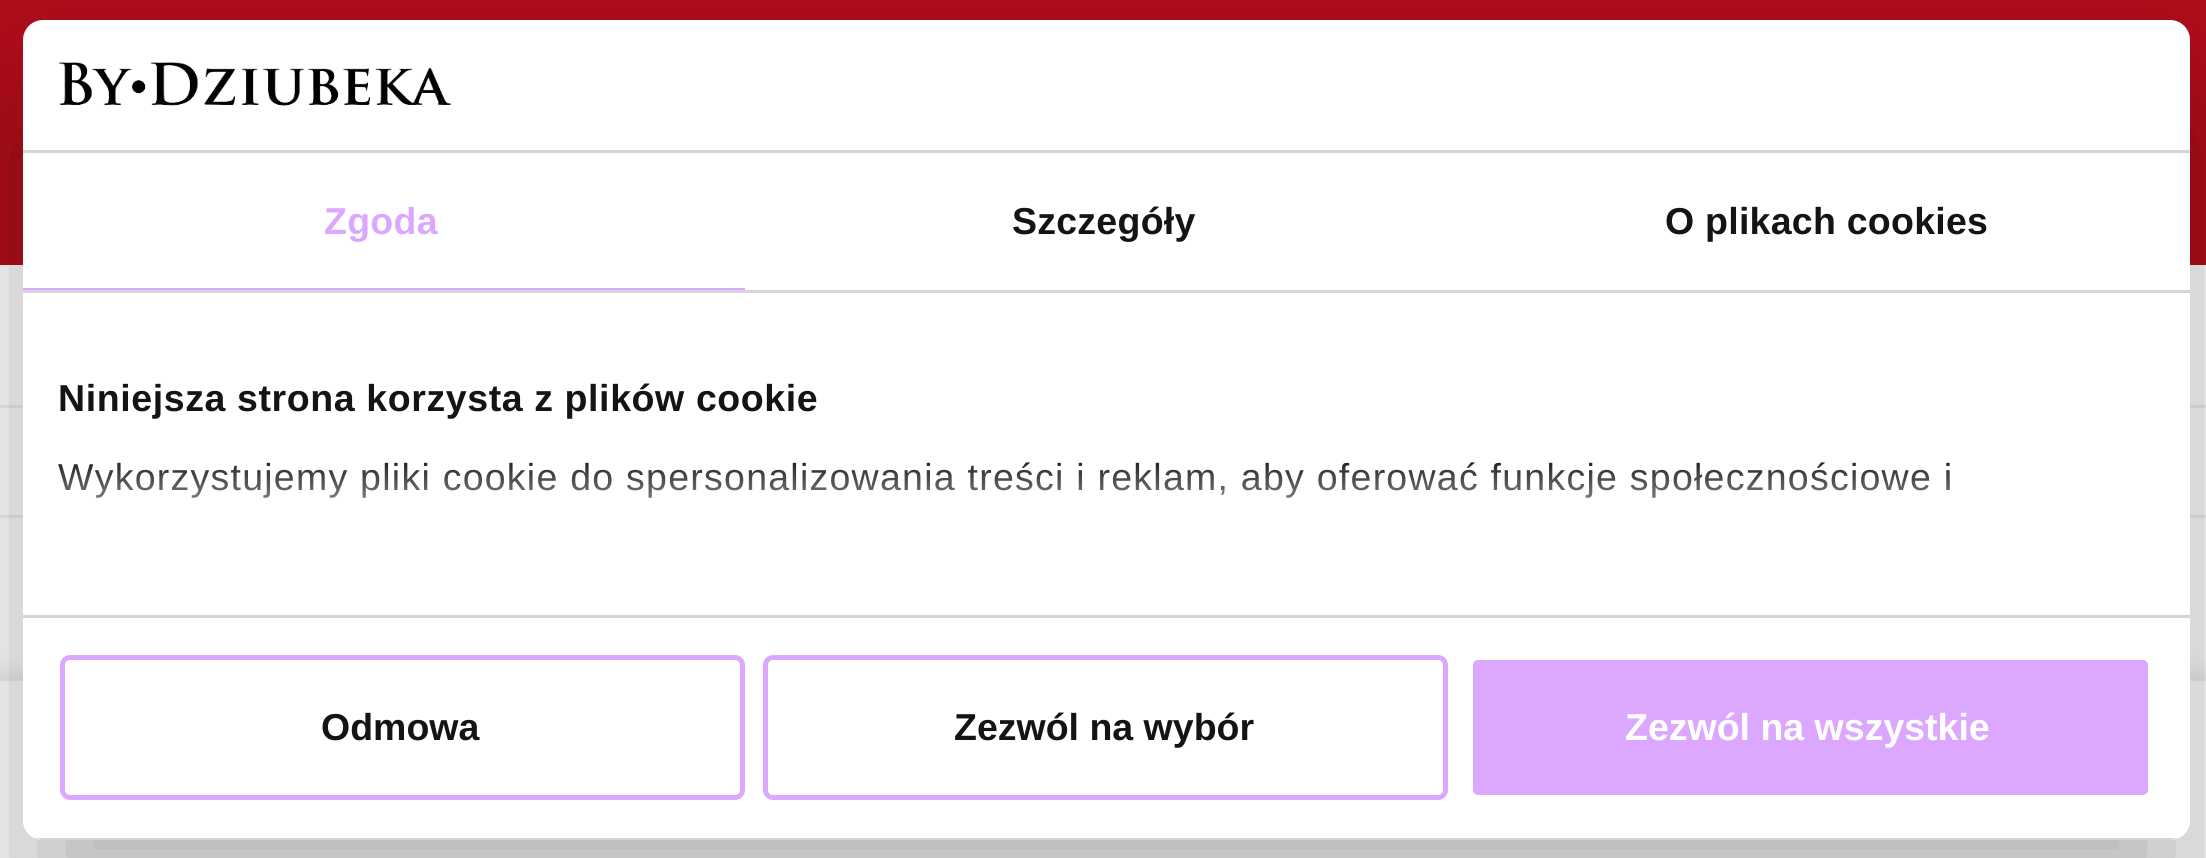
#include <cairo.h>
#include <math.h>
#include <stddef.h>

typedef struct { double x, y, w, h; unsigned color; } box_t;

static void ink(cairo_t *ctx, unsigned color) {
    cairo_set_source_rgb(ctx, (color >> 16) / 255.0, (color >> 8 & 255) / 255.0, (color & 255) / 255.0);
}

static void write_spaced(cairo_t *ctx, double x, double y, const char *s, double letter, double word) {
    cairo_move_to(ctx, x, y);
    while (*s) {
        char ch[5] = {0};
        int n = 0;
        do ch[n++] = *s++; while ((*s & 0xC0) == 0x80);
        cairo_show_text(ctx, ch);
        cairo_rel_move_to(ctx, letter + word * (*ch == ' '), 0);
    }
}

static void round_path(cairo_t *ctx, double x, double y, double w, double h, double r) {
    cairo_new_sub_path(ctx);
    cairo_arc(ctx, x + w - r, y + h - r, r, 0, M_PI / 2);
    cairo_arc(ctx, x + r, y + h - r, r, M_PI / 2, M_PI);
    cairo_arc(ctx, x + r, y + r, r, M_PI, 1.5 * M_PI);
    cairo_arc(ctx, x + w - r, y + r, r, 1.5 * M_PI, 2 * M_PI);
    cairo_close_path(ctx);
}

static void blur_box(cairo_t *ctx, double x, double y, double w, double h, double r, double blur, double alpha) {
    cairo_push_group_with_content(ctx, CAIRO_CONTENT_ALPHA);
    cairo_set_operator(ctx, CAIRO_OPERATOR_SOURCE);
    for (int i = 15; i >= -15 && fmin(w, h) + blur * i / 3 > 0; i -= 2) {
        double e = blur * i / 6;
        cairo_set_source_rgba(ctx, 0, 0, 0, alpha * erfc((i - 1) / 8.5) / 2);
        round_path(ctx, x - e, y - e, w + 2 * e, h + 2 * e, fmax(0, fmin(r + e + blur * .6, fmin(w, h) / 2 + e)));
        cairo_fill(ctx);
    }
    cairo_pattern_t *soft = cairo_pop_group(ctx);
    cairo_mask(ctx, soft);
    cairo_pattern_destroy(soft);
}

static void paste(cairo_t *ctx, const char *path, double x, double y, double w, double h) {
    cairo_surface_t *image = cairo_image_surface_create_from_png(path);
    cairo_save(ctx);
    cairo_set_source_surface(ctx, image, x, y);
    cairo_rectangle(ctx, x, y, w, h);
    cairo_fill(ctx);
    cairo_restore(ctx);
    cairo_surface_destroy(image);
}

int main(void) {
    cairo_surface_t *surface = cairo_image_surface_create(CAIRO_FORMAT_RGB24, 2206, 858);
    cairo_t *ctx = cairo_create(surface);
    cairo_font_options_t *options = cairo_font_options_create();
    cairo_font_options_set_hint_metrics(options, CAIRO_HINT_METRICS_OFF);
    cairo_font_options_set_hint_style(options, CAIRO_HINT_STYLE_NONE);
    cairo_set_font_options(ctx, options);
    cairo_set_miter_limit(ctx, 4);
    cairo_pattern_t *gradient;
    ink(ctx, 0xFFFFFF);
    cairo_paint(ctx);
    {
        static const box_t items[] = {
            {0, 0, 2206, 265, 0xB20D1A},
            {0, 405, 2206, 3, 0xEEEEEE},
            {0, 515, 2206, 3, 0xEEEEEE},
        };
        for (size_t i = 0; i < sizeof items / sizeof *items; i++) {
            ink(ctx, items[i].color);
            cairo_rectangle(ctx, items[i].x, items[i].y, items[i].w, items[i].h);
            cairo_fill(ctx);
        }
    }
    ink(ctx, 0x000000);
    blur_box(ctx, 0, 673, 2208, 182, 0, 10, 0.1);
    ink(ctx, 0xFFFFFF);
    cairo_rectangle(ctx, 0, 681, 2206, 177);
    cairo_fill(ctx);
    ink(ctx, 0xEEEEEE);
    cairo_rectangle(ctx, 0, 678, 2206, 3);
    cairo_fill(ctx);
    cairo_save(ctx);
    cairo_set_fill_rule(ctx, CAIRO_FILL_RULE_EVEN_ODD);
    cairo_new_path(ctx);
    cairo_move_to(ctx, 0, 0);
    cairo_line_to(ctx, 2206, 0);
    cairo_line_to(ctx, 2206, 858);
    cairo_line_to(ctx, 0, 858);
    cairo_close_path(ctx);
    cairo_move_to(ctx, 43, 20);
    cairo_line_to(ctx, 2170, 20);
    cairo_curve_to(ctx, 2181, 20, 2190, 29, 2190, 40);
    cairo_line_to(ctx, 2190, 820);
    cairo_curve_to(ctx, 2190, 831, 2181, 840, 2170, 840);
    cairo_line_to(ctx, 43, 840);
    cairo_curve_to(ctx, 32, 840, 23, 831, 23, 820);
    cairo_line_to(ctx, 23, 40);
    cairo_curve_to(ctx, 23, 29, 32, 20, 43, 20);
    cairo_close_path(ctx);
    cairo_clip(ctx);
    ink(ctx, 0x000000);
    blur_box(ctx, 23, 100, 2167, 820, 20, 85, 0.3);
    cairo_restore(ctx);
    ink(ctx, 0xFFFFFF);
    round_path(ctx, 23, 20, 2167, 820, 20);
    cairo_fill(ctx);
    ink(ctx, 0xD6D6D6);
    cairo_rectangle(ctx, 23, 150, 2167, 3);
    cairo_fill(ctx);
    paste(ctx, "media/1.png", 59, 62, 393, 44);
    cairo_rectangle(ctx, 23, 290, 2167, 3);
    cairo_fill(ctx);
    ink(ctx, 0xDCA8FF);
    cairo_rectangle(ctx, 23, 288, 722, 2);
    cairo_fill(ctx);
    cairo_select_font_face(ctx, "Liberation Sans", CAIRO_FONT_SLANT_NORMAL, CAIRO_FONT_WEIGHT_BOLD);
    cairo_set_font_size(ctx, 37.5);
    write_spaced(ctx, 324, 234, "Zgoda", 0.25, 0);
    ink(ctx, 0x141414);
    write_spaced(ctx, 1012, 234, "Szczegóły", 0.25, 0);
    write_spaced(ctx, 1665, 234, "O plikach cookies", 0.25, 0);
    ink(ctx, 0xD6D6D6);
    cairo_rectangle(ctx, 23, 615, 2167, 3);
    cairo_fill(ctx);
    ink(ctx, 0x141414);
    write_spaced(ctx, 58, 411, "Niniejsza strona korzysta z plików cookie", 0.6, 0);
    cairo_select_font_face(ctx, "Liberation Sans", CAIRO_FONT_SLANT_NORMAL, CAIRO_FONT_WEIGHT_NORMAL);
    write_spaced(ctx, 58, 490, "Wykorzystujemy pliki cookie do spersonalizowania treści i reklam, aby oferować funkcje społecznościowe i", 1.25, 0);
    gradient = cairo_pattern_create_linear(1089, 615, 1089, 455);
    cairo_pattern_add_color_stop_rgba(gradient, 0, 1, 1, 1, 1);
    cairo_pattern_add_color_stop_rgba(gradient, 0.5, 1, 1, 1, 0.8);
    cairo_pattern_add_color_stop_rgba(gradient, 1, 1, 1, 1, 0);
    cairo_set_source(ctx, gradient);
    cairo_pattern_destroy(gradient);
    cairo_rectangle(ctx, 57, 462, 1892, 36);
    cairo_fill(ctx);
    cairo_save(ctx);
    round_path(ctx, 23, 20, 2167, 820, 20);
    cairo_clip(ctx);
    ink(ctx, 0xD6D6D6);
    cairo_rectangle(ctx, 34, 838, 2145, 2);
    cairo_fill(ctx);
    cairo_restore(ctx);
    round_path(ctx, 62.5, 657.5, 680, 140, 7.5);
    ink(ctx, 0xDCA8FF);
    cairo_set_line_width(ctx, 5);
    cairo_stroke(ctx);
    cairo_select_font_face(ctx, "Liberation Sans", CAIRO_FONT_SLANT_NORMAL, CAIRO_FONT_WEIGHT_BOLD);
    ink(ctx, 0x141414);
    cairo_move_to(ctx, 321, 740);
    cairo_show_text(ctx, "Odmowa");
    round_path(ctx, 765.5, 657.5, 680, 140, 7.5);
    ink(ctx, 0xDCA8FF);
    cairo_stroke(ctx);
    ink(ctx, 0x141414);
    cairo_move_to(ctx, 954, 740);
    cairo_show_text(ctx, "Zezwól na wybór");
    ink(ctx, 0xDCA8FF);
    round_path(ctx, 1470.5, 657.5, 680, 140, 7.5);
    cairo_fill_preserve(ctx);
    ink(ctx, 0xFFFFFF);
    cairo_stroke(ctx);
    cairo_move_to(ctx, 1625, 740);
    cairo_show_text(ctx, "Zezwól na wszystkie");
    cairo_surface_write_to_png(surface, "image.png");
    cairo_font_options_destroy(options);
    cairo_destroy(ctx);
    cairo_surface_destroy(surface);
    return 0;
}
